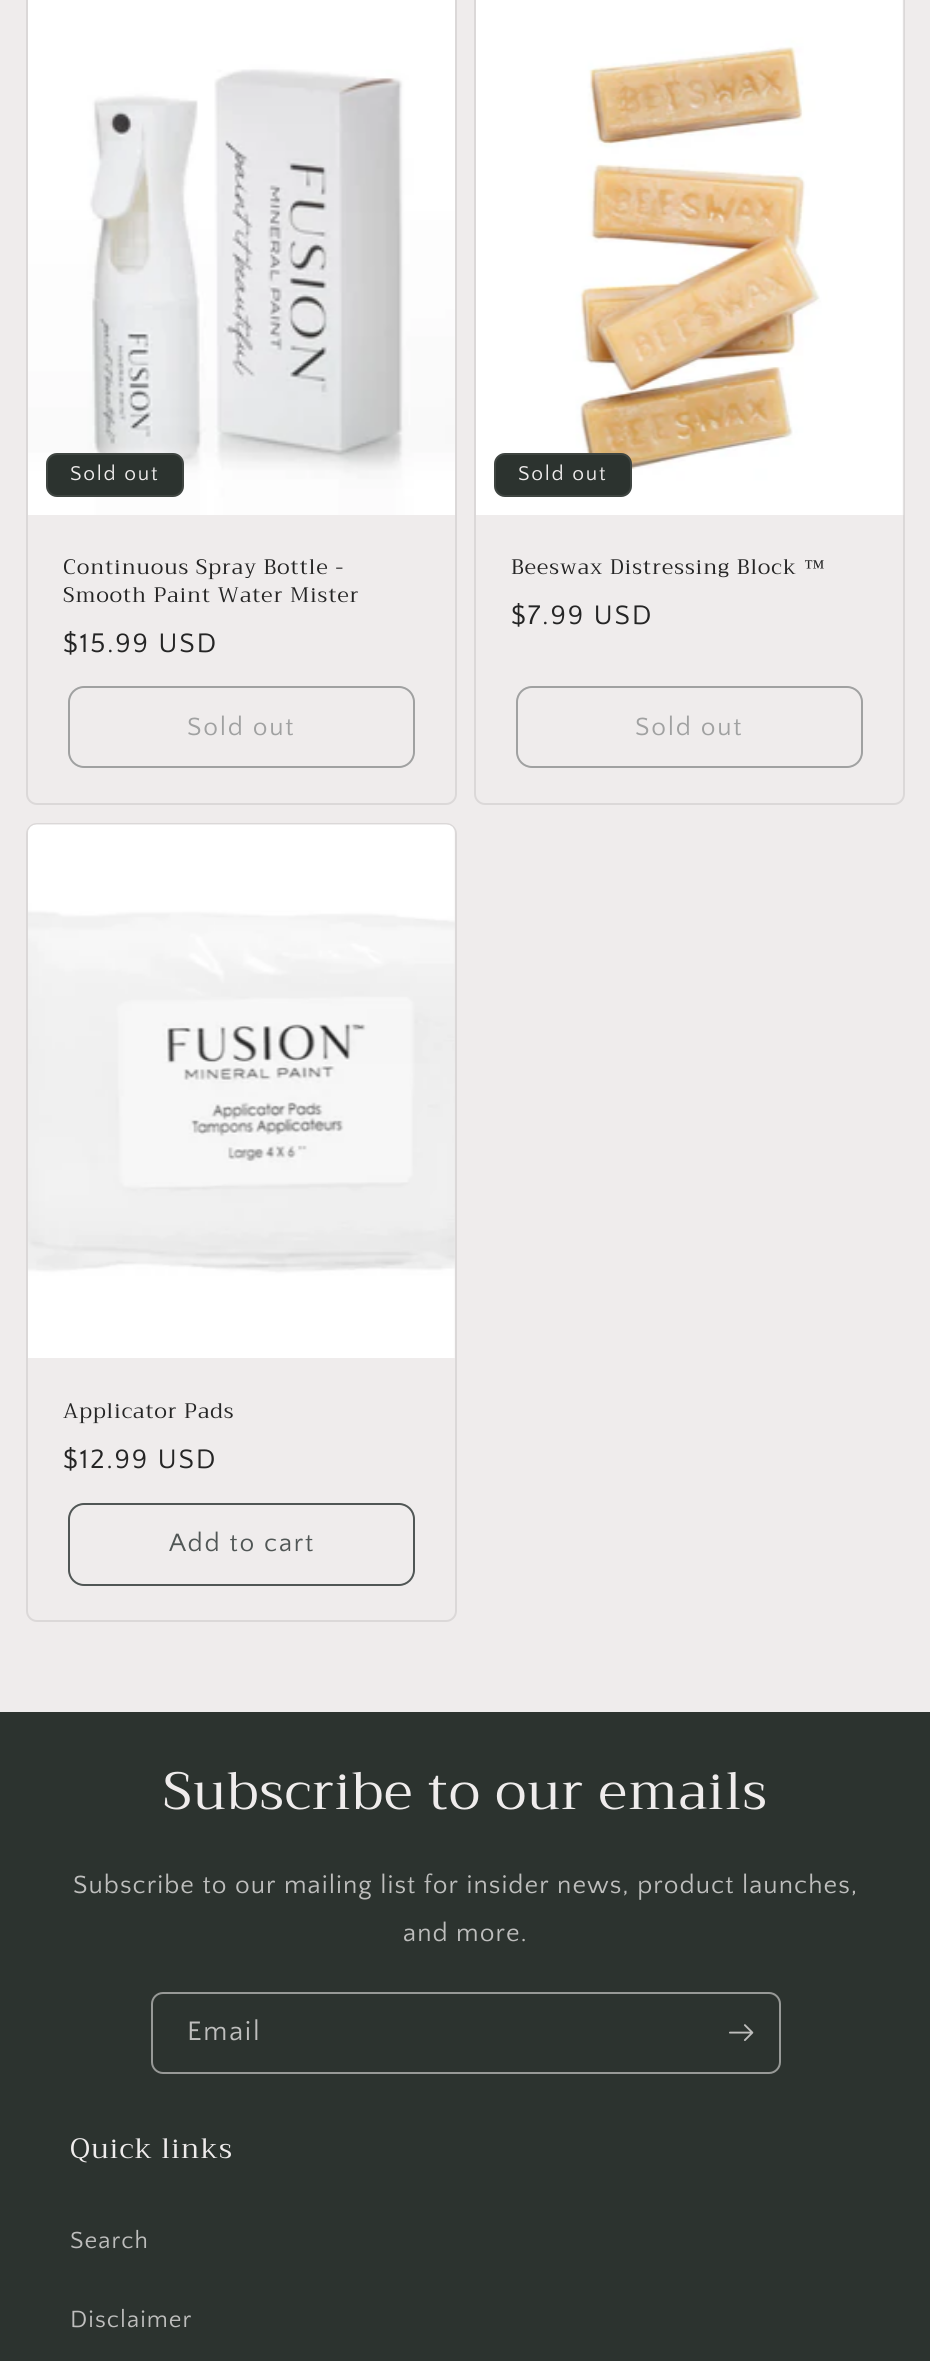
#include <cairo.h>
#include <math.h>
#include <stddef.h>


static void ink(cairo_t *ctx, unsigned color) {
    cairo_set_source_rgb(ctx, (color >> 16) / 255.0, (color >> 8 & 255) / 255.0, (color & 255) / 255.0);
}

static void write_spaced(cairo_t *ctx, double x, double y, const char *s, double letter, double word) {
    cairo_move_to(ctx, x, y);
    while (*s) {
        char ch[5] = {0};
        int n = 0;
        do ch[n++] = *s++; while ((*s & 0xC0) == 0x80);
        cairo_show_text(ctx, ch);
        cairo_rel_move_to(ctx, letter + word * (*ch == ' '), 0);
    }
}

static void round_path(cairo_t *ctx, double x, double y, double w, double h, double r) {
    cairo_new_sub_path(ctx);
    cairo_arc(ctx, x + w - r, y + h - r, r, 0, M_PI / 2);
    cairo_arc(ctx, x + r, y + h - r, r, M_PI / 2, M_PI);
    cairo_arc(ctx, x + r, y + r, r, M_PI, 1.5 * M_PI);
    cairo_arc(ctx, x + w - r, y + r, r, 1.5 * M_PI, 2 * M_PI);
    cairo_close_path(ctx);
}

static void paste(cairo_t *ctx, const char *path, double x, double y, double w, double h) {
    cairo_surface_t *image = cairo_image_surface_create_from_png(path);
    cairo_save(ctx);
    cairo_set_source_surface(ctx, image, x, y);
    cairo_rectangle(ctx, x, y, w, h);
    cairo_fill(ctx);
    cairo_restore(ctx);
    cairo_surface_destroy(image);
}

int main(void) {
    cairo_surface_t *surface = cairo_image_surface_create(CAIRO_FORMAT_RGB24, 930, 2361);
    cairo_t *ctx = cairo_create(surface);
    cairo_font_options_t *options = cairo_font_options_create();
    cairo_font_options_set_hint_metrics(options, CAIRO_HINT_METRICS_OFF);
    cairo_font_options_set_hint_style(options, CAIRO_HINT_STYLE_NONE);
    cairo_set_font_options(ctx, options);
    cairo_set_miter_limit(ctx, 4);
    ink(ctx, 0xEFECEC);
    cairo_paint(ctx);
    round_path(ctx, 27, -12, 429, 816, 10);
    ink(ctx, 0xDBD8D8);
    cairo_stroke(ctx);
    paste(ctx, "media/1.png", 28, 0, 427, 515);
    ink(ctx, 0x2C332F);
    round_path(ctx, 46, 453, 138, 44, 11);
    cairo_fill(ctx);
    round_path(ctx, 47, 454, 136, 42, 10);
    cairo_set_source_rgba(ctx, 0.937, 0.925, 0.925, 0.1);
    cairo_stroke(ctx);
    cairo_select_font_face(ctx, "Quattrocento Sans", CAIRO_FONT_SLANT_NORMAL, CAIRO_FONT_WEIGHT_NORMAL);
    cairo_set_font_size(ctx, 21);
    ink(ctx, 0xEFECEC);
    write_spaced(ctx, 70, 480, "Sold out", 1.75, 0);
    cairo_select_font_face(ctx, "Trirong", CAIRO_FONT_SLANT_NORMAL, CAIRO_FONT_WEIGHT_NORMAL);
    ink(ctx, 0x252525);
    write_spaced(ctx, 63, 574, "Continuous Spray Bottle -", 1.05, 0);
    write_spaced(ctx, 63, 602, "Smooth Paint Water Mister", 1.05, 0);
    cairo_select_font_face(ctx, "Quattrocento Sans", CAIRO_FONT_SLANT_NORMAL, CAIRO_FONT_WEIGHT_NORMAL);
    cairo_set_font_size(ctx, 28);
    write_spaced(ctx, 63, 652, "$15.99 USD", 1.75, 0);
    round_path(ctx, 69, 687, 345, 80, 15);
    ink(ctx, 0xA0A1A1);
    cairo_stroke(ctx);
    cairo_set_font_size(ctx, 26.25);
    write_spaced(ctx, 187, 735, "Sold out", 1.75, 0);
    round_path(ctx, 475, -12, 429, 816, 10);
    ink(ctx, 0xDBD8D8);
    cairo_stroke(ctx);
    paste(ctx, "media/2.png", 476, 0, 428, 515);
    ink(ctx, 0x2C332F);
    round_path(ctx, 494, 453, 138, 44, 11);
    cairo_fill(ctx);
    round_path(ctx, 495, 454, 136, 42, 10);
    cairo_set_source_rgba(ctx, 0.937, 0.925, 0.925, 0.1);
    cairo_stroke(ctx);
    cairo_set_font_size(ctx, 21);
    ink(ctx, 0xEFECEC);
    write_spaced(ctx, 518, 480, "Sold out", 1.75, 0);
    cairo_select_font_face(ctx, "Trirong", CAIRO_FONT_SLANT_NORMAL, CAIRO_FONT_WEIGHT_NORMAL);
    ink(ctx, 0x252525);
    write_spaced(ctx, 511, 574, "Beeswax Distressing Block", 1.05, 0);
    cairo_select_font_face(ctx, "Liberation Serif", CAIRO_FONT_SLANT_NORMAL, CAIRO_FONT_WEIGHT_NORMAL);
    write_spaced(ctx, 804, 574, "™", 1.05, 0);
    cairo_select_font_face(ctx, "Quattrocento Sans", CAIRO_FONT_SLANT_NORMAL, CAIRO_FONT_WEIGHT_NORMAL);
    cairo_set_font_size(ctx, 28);
    write_spaced(ctx, 511, 624, "$7.99 USD", 1.75, 0);
    round_path(ctx, 517, 687, 345, 80, 15);
    ink(ctx, 0xA0A1A1);
    cairo_stroke(ctx);
    cairo_set_font_size(ctx, 26.25);
    write_spaced(ctx, 635, 735, "Sold out", 1.75, 0);
    round_path(ctx, 27, 824, 429, 797, 10);
    ink(ctx, 0xDBD8D8);
    cairo_stroke(ctx);
    paste(ctx, "media/3.png", 28, 824, 427, 534);
    cairo_select_font_face(ctx, "Trirong", CAIRO_FONT_SLANT_NORMAL, CAIRO_FONT_WEIGHT_NORMAL);
    cairo_set_font_size(ctx, 21);
    ink(ctx, 0x252525);
    write_spaced(ctx, 63, 1418, "Applicator Pads", 1.05, 0);
    cairo_select_font_face(ctx, "Quattrocento Sans", CAIRO_FONT_SLANT_NORMAL, CAIRO_FONT_WEIGHT_NORMAL);
    cairo_set_font_size(ctx, 28);
    write_spaced(ctx, 63, 1468, "$12.99 USD", 1.75, 0);
    round_path(ctx, 69, 1504, 345, 81, 15);
    ink(ctx, 0x505655);
    cairo_stroke(ctx);
    cairo_set_font_size(ctx, 26.25);
    write_spaced(ctx, 169, 1551, "Add to cart", 1.75, 0);
    ink(ctx, 0x2C332F);
    cairo_rectangle(ctx, 0, 1712, 930, 649);
    cairo_fill(ctx);
    cairo_select_font_face(ctx, "Trirong", CAIRO_FONT_SLANT_NORMAL, CAIRO_FONT_WEIGHT_NORMAL);
    cairo_set_font_size(ctx, 52.5);
    ink(ctx, 0xEFECEC);
    write_spaced(ctx, 163, 1809, "Subscribe to our emails", 1.05, 0);
    cairo_select_font_face(ctx, "Quattrocento Sans", CAIRO_FONT_SLANT_NORMAL, CAIRO_FONT_WEIGHT_NORMAL);
    cairo_set_font_size(ctx, 26.25);
    ink(ctx, 0xBEBEBD);
    write_spaced(ctx, 73, 1893, "Subscribe to our mailing list for insider news, product launches,", 1.05, 0);
    write_spaced(ctx, 403, 1941, "and more.", 1.05, 0);
    round_path(ctx, 152, 1993, 628, 80, 11);
    ink(ctx, 0x979997);
    cairo_stroke(ctx);
    cairo_set_font_size(ctx, 28);
    ink(ctx, 0xBEBEBD);
    write_spaced(ctx, 187, 2040, "Email", 1.75, 0);
    paste(ctx, "media/4.png", 729, 2024, 25, 17);
    cairo_select_font_face(ctx, "Trirong", CAIRO_FONT_SLANT_NORMAL, CAIRO_FONT_WEIGHT_NORMAL);
    ink(ctx, 0xEFECEC);
    write_spaced(ctx, 70, 2158, "Quick links", 1.05, 0);
    cairo_select_font_face(ctx, "Quattrocento Sans", CAIRO_FONT_SLANT_NORMAL, CAIRO_FONT_WEIGHT_NORMAL);
    cairo_set_font_size(ctx, 24.5);
    ink(ctx, 0xBEBEBD);
    write_spaced(ctx, 70, 2248, "Search", 1.05, 0);
    write_spaced(ctx, 70, 2327, "Disclaimer", 1.05, 0);
    cairo_surface_write_to_png(surface, "image.png");
    cairo_font_options_destroy(options);
    cairo_destroy(ctx);
    cairo_surface_destroy(surface);
    return 0;
}
